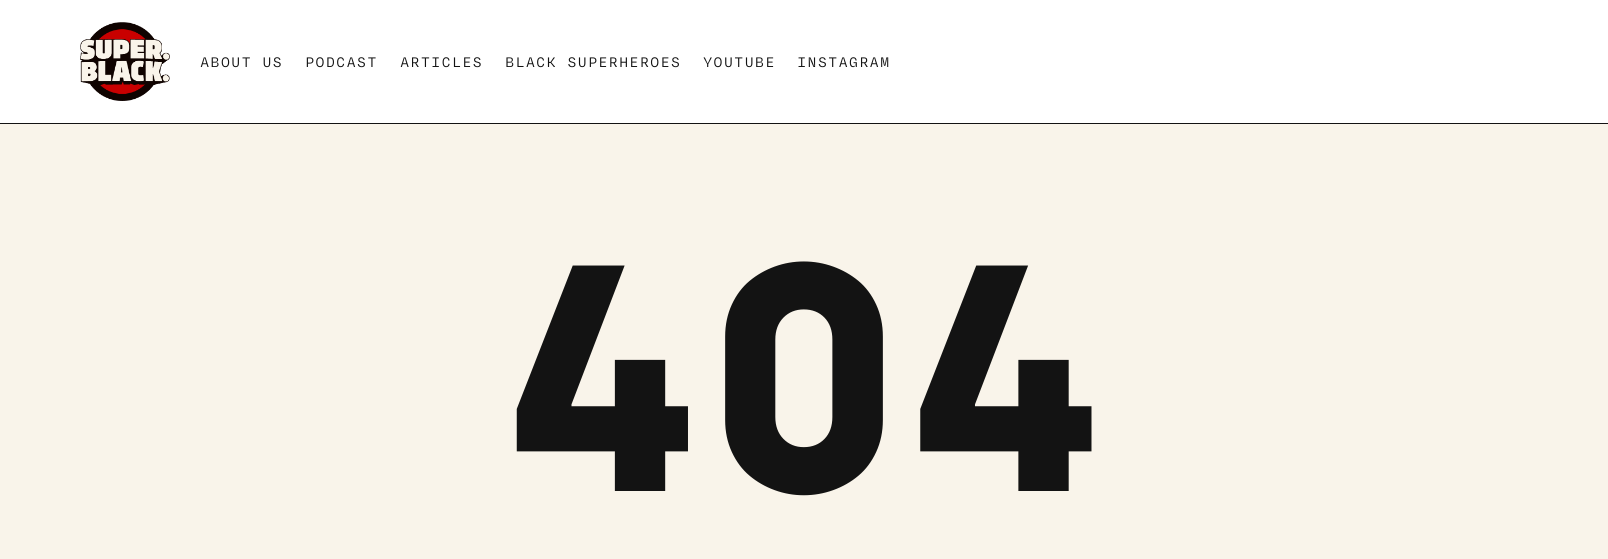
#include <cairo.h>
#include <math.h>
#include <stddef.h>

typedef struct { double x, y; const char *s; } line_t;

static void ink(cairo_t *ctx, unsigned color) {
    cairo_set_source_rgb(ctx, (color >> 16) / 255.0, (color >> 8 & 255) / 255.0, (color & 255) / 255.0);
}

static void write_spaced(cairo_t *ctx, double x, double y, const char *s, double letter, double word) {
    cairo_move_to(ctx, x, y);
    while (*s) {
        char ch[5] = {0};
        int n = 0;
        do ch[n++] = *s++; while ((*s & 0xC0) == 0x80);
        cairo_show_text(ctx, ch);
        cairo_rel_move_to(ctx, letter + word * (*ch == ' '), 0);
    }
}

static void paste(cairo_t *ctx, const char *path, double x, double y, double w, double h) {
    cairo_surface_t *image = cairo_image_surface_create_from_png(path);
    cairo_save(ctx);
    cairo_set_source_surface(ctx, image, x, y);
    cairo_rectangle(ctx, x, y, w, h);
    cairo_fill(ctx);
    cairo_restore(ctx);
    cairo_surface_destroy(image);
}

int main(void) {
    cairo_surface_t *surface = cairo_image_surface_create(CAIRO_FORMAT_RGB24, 1608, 559);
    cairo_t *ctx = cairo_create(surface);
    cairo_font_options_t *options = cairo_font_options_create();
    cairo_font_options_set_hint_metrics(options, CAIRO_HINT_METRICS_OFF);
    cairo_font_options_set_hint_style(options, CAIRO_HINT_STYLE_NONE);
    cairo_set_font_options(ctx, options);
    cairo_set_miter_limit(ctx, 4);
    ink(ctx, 0xFFFFFF);
    cairo_paint(ctx);
    ink(ctx, 0x131313);
    cairo_rectangle(ctx, 0, 123, 1608, 1);
    cairo_fill(ctx);
    paste(ctx, "media/1.png", 80, 22, 90, 79);
    cairo_select_font_face(ctx, "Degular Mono", CAIRO_FONT_SLANT_NORMAL, CAIRO_FONT_WEIGHT_NORMAL);
    cairo_set_font_size(ctx, 16);
    {
        static const line_t items[] = {
            {200, 67, "ABOUT US"},
            {305, 67, "PODCAST"},
            {400, 67, "ARTICLES"},
            {505, 67, "BLACK SUPERHEROES"},
            {703, 67, "YOUTUBE"},
            {797, 67, "INSTAGRAM"},
        };
        for (size_t i = 0; i < sizeof items / sizeof *items; i++) {
            write_spaced(ctx, items[i].x, items[i].y, items[i].s, 1, 0);
        }
    }
    ink(ctx, 0xF9F4EA);
    cairo_rectangle(ctx, 0, 124, 1608, 435);
    cairo_fill(ctx);
    cairo_select_font_face(ctx, "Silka", CAIRO_FONT_SLANT_NORMAL, CAIRO_FONT_WEIGHT_BOLD);
    cairo_set_font_size(ctx, 322);
    ink(ctx, 0x131313);
    cairo_move_to(ctx, 499, 491);
    cairo_show_text(ctx, "404");
    cairo_surface_write_to_png(surface, "image.png");
    cairo_font_options_destroy(options);
    cairo_destroy(ctx);
    cairo_surface_destroy(surface);
    return 0;
}
